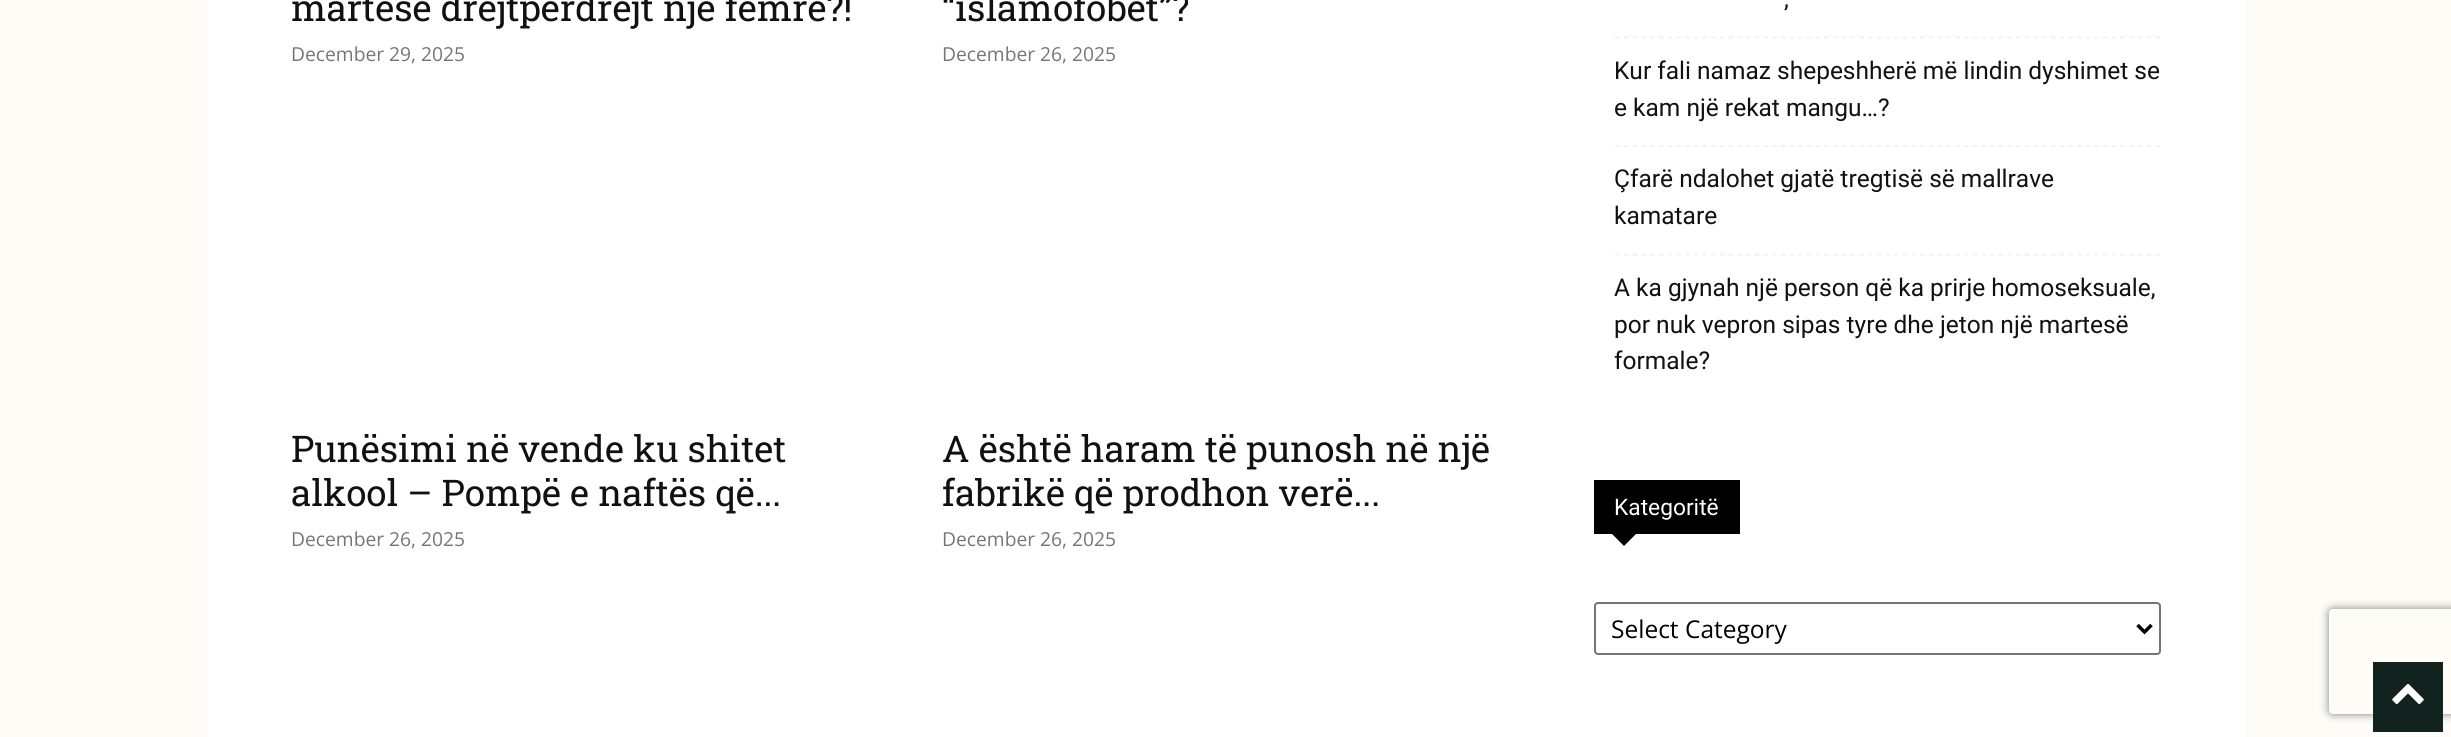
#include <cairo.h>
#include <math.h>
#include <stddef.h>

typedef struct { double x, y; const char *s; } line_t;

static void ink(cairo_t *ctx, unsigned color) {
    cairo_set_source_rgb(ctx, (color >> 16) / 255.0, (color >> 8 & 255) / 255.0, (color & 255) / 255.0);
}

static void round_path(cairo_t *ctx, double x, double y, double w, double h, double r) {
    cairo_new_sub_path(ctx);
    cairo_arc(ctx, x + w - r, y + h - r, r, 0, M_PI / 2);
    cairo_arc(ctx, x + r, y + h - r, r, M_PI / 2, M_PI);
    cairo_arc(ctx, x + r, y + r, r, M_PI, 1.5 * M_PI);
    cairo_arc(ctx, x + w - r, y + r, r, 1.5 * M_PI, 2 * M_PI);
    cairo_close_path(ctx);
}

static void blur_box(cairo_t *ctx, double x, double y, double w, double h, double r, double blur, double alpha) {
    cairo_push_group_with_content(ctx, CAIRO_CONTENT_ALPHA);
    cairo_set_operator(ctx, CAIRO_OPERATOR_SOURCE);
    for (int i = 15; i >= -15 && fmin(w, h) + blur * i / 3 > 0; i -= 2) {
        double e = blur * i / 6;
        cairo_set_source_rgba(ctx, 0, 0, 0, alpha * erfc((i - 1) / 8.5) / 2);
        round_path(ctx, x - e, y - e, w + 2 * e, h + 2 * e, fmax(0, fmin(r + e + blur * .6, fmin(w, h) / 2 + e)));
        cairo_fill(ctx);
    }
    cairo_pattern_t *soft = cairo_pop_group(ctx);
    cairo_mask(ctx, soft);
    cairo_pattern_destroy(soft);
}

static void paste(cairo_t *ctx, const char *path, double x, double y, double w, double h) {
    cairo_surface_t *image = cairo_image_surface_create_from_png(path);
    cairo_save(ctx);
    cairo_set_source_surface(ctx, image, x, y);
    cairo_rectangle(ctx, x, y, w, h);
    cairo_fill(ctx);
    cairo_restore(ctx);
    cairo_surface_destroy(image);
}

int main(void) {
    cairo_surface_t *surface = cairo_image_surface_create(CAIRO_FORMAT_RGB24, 2451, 737);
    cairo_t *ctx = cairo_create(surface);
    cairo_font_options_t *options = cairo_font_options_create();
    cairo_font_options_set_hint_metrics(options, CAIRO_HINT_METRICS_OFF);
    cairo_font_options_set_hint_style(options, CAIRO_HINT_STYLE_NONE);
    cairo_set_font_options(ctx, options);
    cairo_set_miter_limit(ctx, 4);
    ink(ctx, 0xFDFCF7);
    cairo_paint(ctx);
    ink(ctx, 0xFFFFFF);
    cairo_rectangle(ctx, 208, 0, 2037, 737);
    cairo_fill(ctx);
    cairo_select_font_face(ctx, "Roboto Slab", CAIRO_FONT_SLANT_NORMAL, CAIRO_FONT_WEIGHT_NORMAL);
    cairo_set_font_size(ctx, 36.75);
    ink(ctx, 0x111111);
    cairo_move_to(ctx, 291, 21);
    cairo_show_text(ctx, "martesë drejtpërdrejt një femre?!");
    cairo_select_font_face(ctx, "Open Sans", CAIRO_FONT_SLANT_NORMAL, CAIRO_FONT_WEIGHT_NORMAL);
    cairo_set_font_size(ctx, 19.25);
    ink(ctx, 0x767676);
    cairo_move_to(ctx, 291, 61);
    cairo_show_text(ctx, "December 29, 2025");
    cairo_select_font_face(ctx, "Roboto Slab", CAIRO_FONT_SLANT_NORMAL, CAIRO_FONT_WEIGHT_NORMAL);
    cairo_set_font_size(ctx, 36.75);
    ink(ctx, 0x111111);
    cairo_move_to(ctx, 942, 21);
    cairo_show_text(ctx, "“islamofobët”?");
    cairo_select_font_face(ctx, "Open Sans", CAIRO_FONT_SLANT_NORMAL, CAIRO_FONT_WEIGHT_NORMAL);
    cairo_set_font_size(ctx, 19.25);
    ink(ctx, 0x767676);
    cairo_move_to(ctx, 942, 61);
    cairo_show_text(ctx, "December 26, 2025");
    cairo_select_font_face(ctx, "Roboto Slab", CAIRO_FONT_SLANT_NORMAL, CAIRO_FONT_WEIGHT_NORMAL);
    cairo_set_font_size(ctx, 36.75);
    ink(ctx, 0x111111);
    cairo_move_to(ctx, 291, 462);
    cairo_show_text(ctx, "Punësimi në vende ku shitet");
    cairo_move_to(ctx, 291, 506);
    cairo_show_text(ctx, "alkool – Pompë e naftës që...");
    cairo_select_font_face(ctx, "Open Sans", CAIRO_FONT_SLANT_NORMAL, CAIRO_FONT_WEIGHT_NORMAL);
    cairo_set_font_size(ctx, 19.25);
    ink(ctx, 0x767676);
    cairo_move_to(ctx, 291, 546);
    cairo_show_text(ctx, "December 26, 2025");
    cairo_select_font_face(ctx, "Roboto Slab", CAIRO_FONT_SLANT_NORMAL, CAIRO_FONT_WEIGHT_NORMAL);
    cairo_set_font_size(ctx, 36.75);
    ink(ctx, 0x111111);
    cairo_move_to(ctx, 942, 462);
    cairo_show_text(ctx, "A është haram të punosh në një");
    cairo_move_to(ctx, 942, 506);
    cairo_show_text(ctx, "fabrikë që prodhon verë...");
    cairo_select_font_face(ctx, "Open Sans", CAIRO_FONT_SLANT_NORMAL, CAIRO_FONT_WEIGHT_NORMAL);
    cairo_set_font_size(ctx, 19.25);
    ink(ctx, 0x767676);
    cairo_move_to(ctx, 942, 546);
    cairo_show_text(ctx, "December 26, 2025");
    cairo_new_path(ctx);
    cairo_move_to(ctx, 1615, 37.5);
    cairo_line_to(ctx, 2161, 37.5);
    ink(ctx, 0xF1F1F1);
    cairo_set_line_width(ctx, 1.8);
    cairo_set_dash(ctx, (double[]){5.25, 3.46}, 2, 0);
    cairo_stroke(ctx);
    cairo_select_font_face(ctx, "Roboto", CAIRO_FONT_SLANT_NORMAL, CAIRO_FONT_WEIGHT_NORMAL);
    cairo_set_font_size(ctx, 24.5);
    ink(ctx, 0x111111);
    cairo_move_to(ctx, 1784, 7);
    cairo_show_text(ctx, ",");
    cairo_new_path(ctx);
    cairo_move_to(ctx, 1615, 146);
    cairo_line_to(ctx, 2161, 146);
    ink(ctx, 0xF1F1F1);
    cairo_stroke(ctx);
    ink(ctx, 0x111111);
    cairo_move_to(ctx, 1614, 79);
    cairo_show_text(ctx, "Kur fali namaz shepeshherë më lindin dyshimet se");
    cairo_move_to(ctx, 1614, 116);
    cairo_show_text(ctx, "e kam një rekat mangu…?");
    cairo_new_path(ctx);
    cairo_move_to(ctx, 1615, 254.5);
    cairo_line_to(ctx, 2161, 254.5);
    ink(ctx, 0xF1F1F1);
    cairo_stroke(ctx);
    ink(ctx, 0x111111);
    {
        static const line_t items[] = {
            {1614, 187, "Çfarë ndalohet gjatë tregtisë së mallrave"},
            {1614, 224, "kamatare"},
            {1614, 296, "A ka gjynah një person që ka prirje homoseksuale,"},
            {1614, 333, "por nuk vepron sipas tyre dhe jeton një martesë"},
            {1614, 369, "formale?"},
        };
        for (size_t i = 0; i < sizeof items / sizeof *items; i++) {
            cairo_move_to(ctx, items[i].x, items[i].y);
            cairo_show_text(ctx, items[i].s);
        }
    }
    ink(ctx, 0x000000);
    cairo_rectangle(ctx, 1594, 480, 146, 54);
    cairo_fill(ctx);
    cairo_set_font_size(ctx, 22.75);
    ink(ctx, 0xFFFFFF);
    cairo_move_to(ctx, 1614, 515);
    cairo_show_text(ctx, "Kategoritë");
    ink(ctx, 0x000000);
    cairo_new_path(ctx);
    cairo_move_to(ctx, 1612, 534);
    cairo_line_to(ctx, 1636, 534);
    cairo_line_to(ctx, 1624, 546);
    cairo_close_path(ctx);
    cairo_fill(ctx);
    round_path(ctx, 1595, 603, 565, 51, 3);
    ink(ctx, 0x767676);
    cairo_set_line_width(ctx, 2);
    cairo_set_dash(ctx, NULL, 0, 0);
    cairo_stroke(ctx);
    cairo_new_path(ctx);
    cairo_move_to(ctx, 2137.5, 625);
    cairo_line_to(ctx, 2144.5, 632);
    cairo_line_to(ctx, 2151.5, 625);
    ink(ctx, 0x000000);
    cairo_set_line_width(ctx, 3.5);
    cairo_stroke(ctx);
    cairo_select_font_face(ctx, "Open Sans", CAIRO_FONT_SLANT_NORMAL, CAIRO_FONT_WEIGHT_NORMAL);
    cairo_set_font_size(ctx, 24.5);
    cairo_move_to(ctx, 1611, 638);
    cairo_show_text(ctx, "Select Category");
    cairo_save(ctx);
    cairo_set_fill_rule(ctx, CAIRO_FILL_RULE_EVEN_ODD);
    cairo_new_path(ctx);
    cairo_move_to(ctx, 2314, 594);
    cairo_line_to(ctx, 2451, 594);
    cairo_line_to(ctx, 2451, 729);
    cairo_line_to(ctx, 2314, 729);
    cairo_close_path(ctx);
    cairo_move_to(ctx, 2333, 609);
    cairo_line_to(ctx, 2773, 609);
    cairo_curve_to(ctx, 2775, 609, 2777, 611, 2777, 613);
    cairo_line_to(ctx, 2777, 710);
    cairo_curve_to(ctx, 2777, 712, 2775, 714, 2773, 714);
    cairo_line_to(ctx, 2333, 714);
    cairo_curve_to(ctx, 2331, 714, 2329, 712, 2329, 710);
    cairo_line_to(ctx, 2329, 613);
    cairo_curve_to(ctx, 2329, 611, 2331, 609, 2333, 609);
    cairo_close_path(ctx);
    cairo_clip(ctx);
    ink(ctx, 0x808080);
    blur_box(ctx, 2329, 609, 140, 105, 4, 4.5, 1);
    cairo_restore(ctx);
    ink(ctx, 0x11221F);
    cairo_rectangle(ctx, 2373, 662, 70, 70);
    cairo_fill(ctx);
    paste(ctx, "media/1.png", 2392, 683, 32, 21);
    cairo_surface_write_to_png(surface, "image.png");
    cairo_font_options_destroy(options);
    cairo_destroy(ctx);
    cairo_surface_destroy(surface);
    return 0;
}
